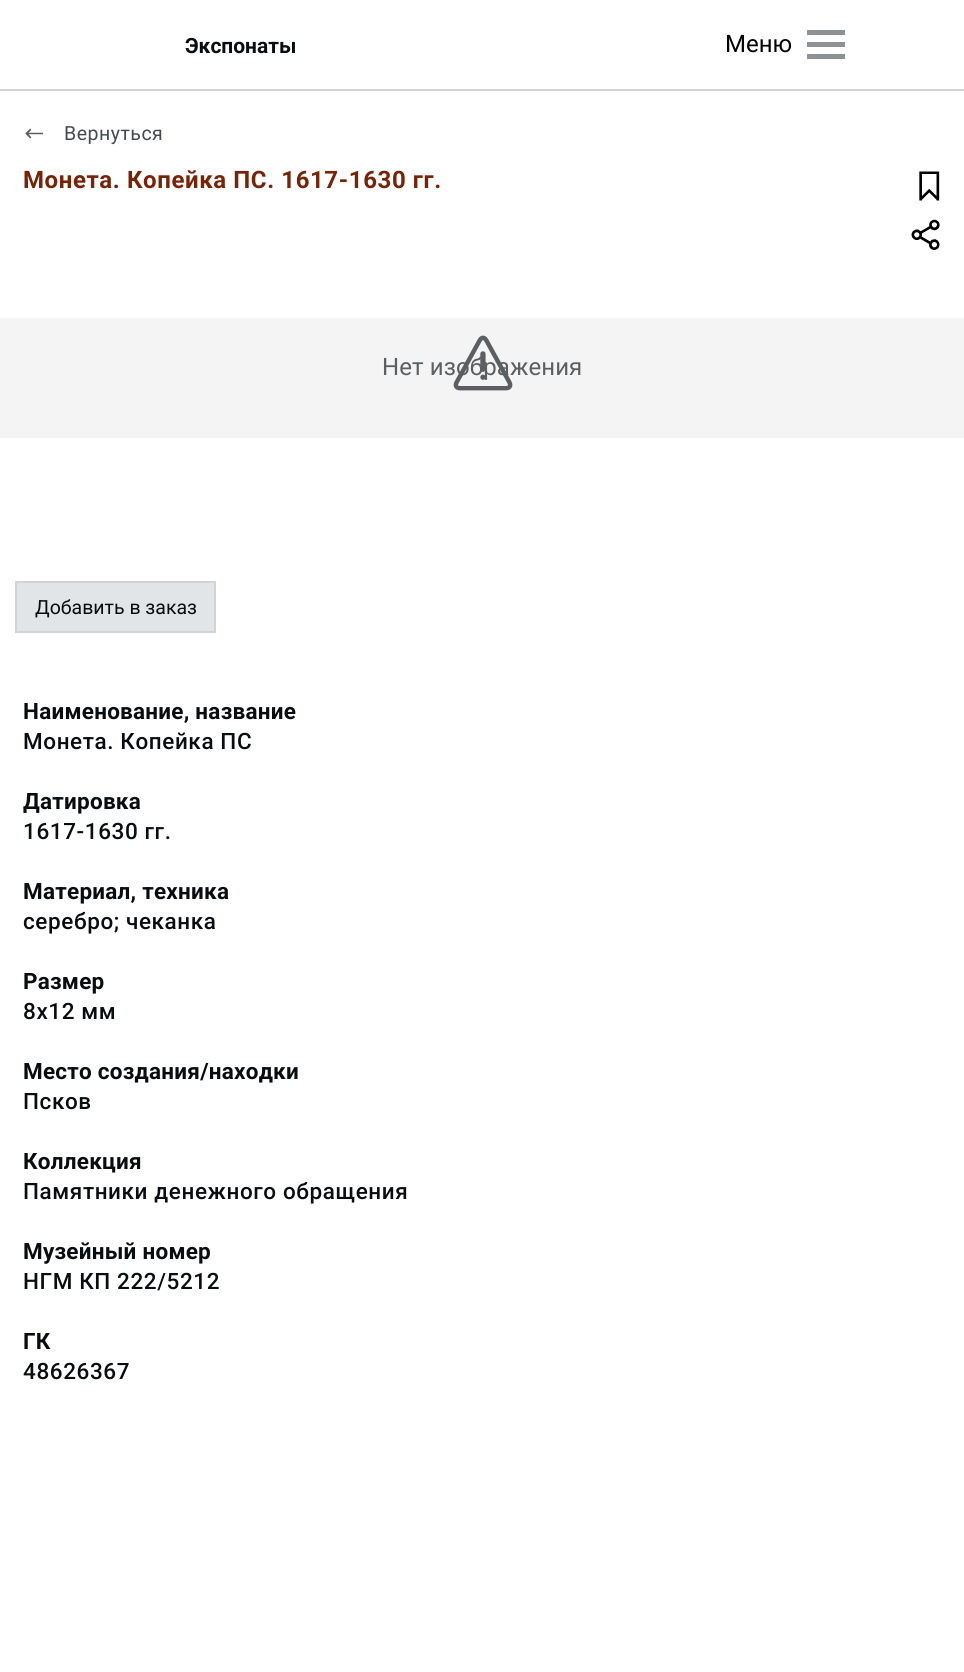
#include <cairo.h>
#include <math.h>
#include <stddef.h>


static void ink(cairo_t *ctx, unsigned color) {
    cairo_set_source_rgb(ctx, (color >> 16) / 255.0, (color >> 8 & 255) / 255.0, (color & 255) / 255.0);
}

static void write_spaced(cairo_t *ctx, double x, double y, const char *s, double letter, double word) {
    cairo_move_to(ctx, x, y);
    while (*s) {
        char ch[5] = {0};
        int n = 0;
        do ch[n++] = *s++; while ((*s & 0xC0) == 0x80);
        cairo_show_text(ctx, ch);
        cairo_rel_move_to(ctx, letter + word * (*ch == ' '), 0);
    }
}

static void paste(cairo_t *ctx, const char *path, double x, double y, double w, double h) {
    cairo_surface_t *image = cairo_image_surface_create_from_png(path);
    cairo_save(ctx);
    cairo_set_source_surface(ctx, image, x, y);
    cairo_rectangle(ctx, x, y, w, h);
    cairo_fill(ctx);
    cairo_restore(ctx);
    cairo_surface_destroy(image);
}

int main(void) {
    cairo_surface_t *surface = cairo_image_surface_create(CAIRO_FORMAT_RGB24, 964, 1672);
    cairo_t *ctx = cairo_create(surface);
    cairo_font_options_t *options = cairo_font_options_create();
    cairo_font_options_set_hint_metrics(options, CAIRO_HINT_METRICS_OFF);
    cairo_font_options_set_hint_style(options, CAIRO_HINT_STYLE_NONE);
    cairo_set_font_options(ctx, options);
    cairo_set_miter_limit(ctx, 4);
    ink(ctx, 0xFFFFFF);
    cairo_paint(ctx);
    ink(ctx, 0xD3D3D3);
    cairo_rectangle(ctx, 0, 89, 964, 2);
    cairo_fill(ctx);
    cairo_select_font_face(ctx, "Roboto", CAIRO_FONT_SLANT_NORMAL, CAIRO_FONT_WEIGHT_BOLD);
    cairo_set_font_size(ctx, 21);
    ink(ctx, 0x0A0D10);
    cairo_move_to(ctx, 185, 53);
    cairo_show_text(ctx, "Экспонаты");
    ink(ctx, 0x8E9195);
    cairo_rectangle(ctx, 807, 30, 38, 5);
    cairo_fill(ctx);
    cairo_select_font_face(ctx, "Roboto", CAIRO_FONT_SLANT_NORMAL, CAIRO_FONT_WEIGHT_NORMAL);
    cairo_set_font_size(ctx, 24);
    ink(ctx, 0x000000);
    cairo_move_to(ctx, 725, 52);
    cairo_show_text(ctx, "Меню");
    ink(ctx, 0x8E9195);
    cairo_rectangle(ctx, 807, 42, 38, 5);
    cairo_fill(ctx);
    cairo_rectangle(ctx, 807, 54, 38, 5);
    cairo_fill(ctx);
    paste(ctx, "media/1.png", 25, 128, 18, 11);
    cairo_set_font_size(ctx, 19.5);
    ink(ctx, 0x444A50);
    write_spaced(ctx, 64, 140, "Вернуться", 0.5, 0);
    cairo_select_font_face(ctx, "Roboto", CAIRO_FONT_SLANT_NORMAL, CAIRO_FONT_WEIGHT_BOLD);
    cairo_set_font_size(ctx, 24);
    ink(ctx, 0x762306);
    write_spaced(ctx, 23, 188, "Монета. Копейка ПС. 1617-1630 гг.", 0.6, 0);
    ink(ctx, 0xF4F4F5);
    cairo_rectangle(ctx, 0, 318, 964, 120);
    cairo_fill(ctx);
    cairo_select_font_face(ctx, "Roboto", CAIRO_FONT_SLANT_NORMAL, CAIRO_FONT_WEIGHT_NORMAL);
    ink(ctx, 0x5C5F62);
    write_spaced(ctx, 382, 375, "Нет изображения", 0.1, 0);
    paste(ctx, "media/2.png", 453, 335, 60, 56);
    ink(ctx, 0xE2E5E8);
    cairo_rectangle(ctx, 16, 582, 199, 50);
    cairo_fill_preserve(ctx);
    ink(ctx, 0xD3D3D3);
    cairo_stroke(ctx);
    cairo_set_font_size(ctx, 19.5);
    ink(ctx, 0x0A0D10);
    cairo_move_to(ctx, 35, 614);
    cairo_show_text(ctx, "Добавить в заказ");
    paste(ctx, "media/3.png", 919, 171, 21, 30);
    paste(ctx, "media/4.png", 911, 219, 29, 31);
    cairo_select_font_face(ctx, "Roboto", CAIRO_FONT_SLANT_NORMAL, CAIRO_FONT_WEIGHT_BOLD);
    cairo_set_font_size(ctx, 22.5);
    write_spaced(ctx, 23, 719, "Наименование, название", 0.25, 0);
    cairo_select_font_face(ctx, "Roboto Medium", CAIRO_FONT_SLANT_NORMAL, CAIRO_FONT_WEIGHT_NORMAL);
    write_spaced(ctx, 23, 749, "Монета. Копейка ПС", 0.6, 0);
    cairo_save(ctx);
    cairo_rectangle(ctx, 23, 696, 919, 720);
    cairo_clip(ctx);
    cairo_select_font_face(ctx, "Roboto", CAIRO_FONT_SLANT_NORMAL, CAIRO_FONT_WEIGHT_BOLD);
    write_spaced(ctx, 23, 809, "Датировка", 0.25, 0);
    cairo_restore(ctx);
    write_spaced(ctx, 23, 839, "1617-1630 гг.", 0.6, 0);
    cairo_select_font_face(ctx, "Roboto", CAIRO_FONT_SLANT_NORMAL, CAIRO_FONT_WEIGHT_BOLD);
    write_spaced(ctx, 23, 899, "Материал, техника", 0.25, 0);
    cairo_select_font_face(ctx, "Roboto Medium", CAIRO_FONT_SLANT_NORMAL, CAIRO_FONT_WEIGHT_NORMAL);
    write_spaced(ctx, 23, 929, "серебро; чеканка", 0.6, 0);
    cairo_select_font_face(ctx, "Roboto", CAIRO_FONT_SLANT_NORMAL, CAIRO_FONT_WEIGHT_BOLD);
    write_spaced(ctx, 23, 989, "Размер", 0.25, 0);
    cairo_select_font_face(ctx, "Roboto Medium", CAIRO_FONT_SLANT_NORMAL, CAIRO_FONT_WEIGHT_NORMAL);
    write_spaced(ctx, 23, 1019, "8х12 мм", 0.6, 0);
    cairo_select_font_face(ctx, "Roboto", CAIRO_FONT_SLANT_NORMAL, CAIRO_FONT_WEIGHT_BOLD);
    write_spaced(ctx, 23, 1079, "Место создания/находки", 0.25, 0);
    cairo_select_font_face(ctx, "Roboto Medium", CAIRO_FONT_SLANT_NORMAL, CAIRO_FONT_WEIGHT_NORMAL);
    write_spaced(ctx, 23, 1109, "Псков", 0.6, 0);
    cairo_select_font_face(ctx, "Roboto", CAIRO_FONT_SLANT_NORMAL, CAIRO_FONT_WEIGHT_BOLD);
    write_spaced(ctx, 23, 1169, "Коллекция", 0.25, 0);
    cairo_select_font_face(ctx, "Roboto Medium", CAIRO_FONT_SLANT_NORMAL, CAIRO_FONT_WEIGHT_NORMAL);
    write_spaced(ctx, 23, 1199, "Памятники денежного обращения", 0.6, 0);
    cairo_select_font_face(ctx, "Roboto", CAIRO_FONT_SLANT_NORMAL, CAIRO_FONT_WEIGHT_BOLD);
    write_spaced(ctx, 23, 1259, "Музейный номер", 0.25, 0);
    cairo_select_font_face(ctx, "Roboto Medium", CAIRO_FONT_SLANT_NORMAL, CAIRO_FONT_WEIGHT_NORMAL);
    write_spaced(ctx, 23, 1289, "НГМ КП 222/5212", 0.6, 0);
    cairo_select_font_face(ctx, "Roboto", CAIRO_FONT_SLANT_NORMAL, CAIRO_FONT_WEIGHT_BOLD);
    write_spaced(ctx, 23, 1349, "ГК", 0.25, 0);
    cairo_select_font_face(ctx, "Roboto Medium", CAIRO_FONT_SLANT_NORMAL, CAIRO_FONT_WEIGHT_NORMAL);
    write_spaced(ctx, 23, 1379, "48626367", 0.6, 0);
    cairo_surface_write_to_png(surface, "image.png");
    cairo_font_options_destroy(options);
    cairo_destroy(ctx);
    cairo_surface_destroy(surface);
    return 0;
}
